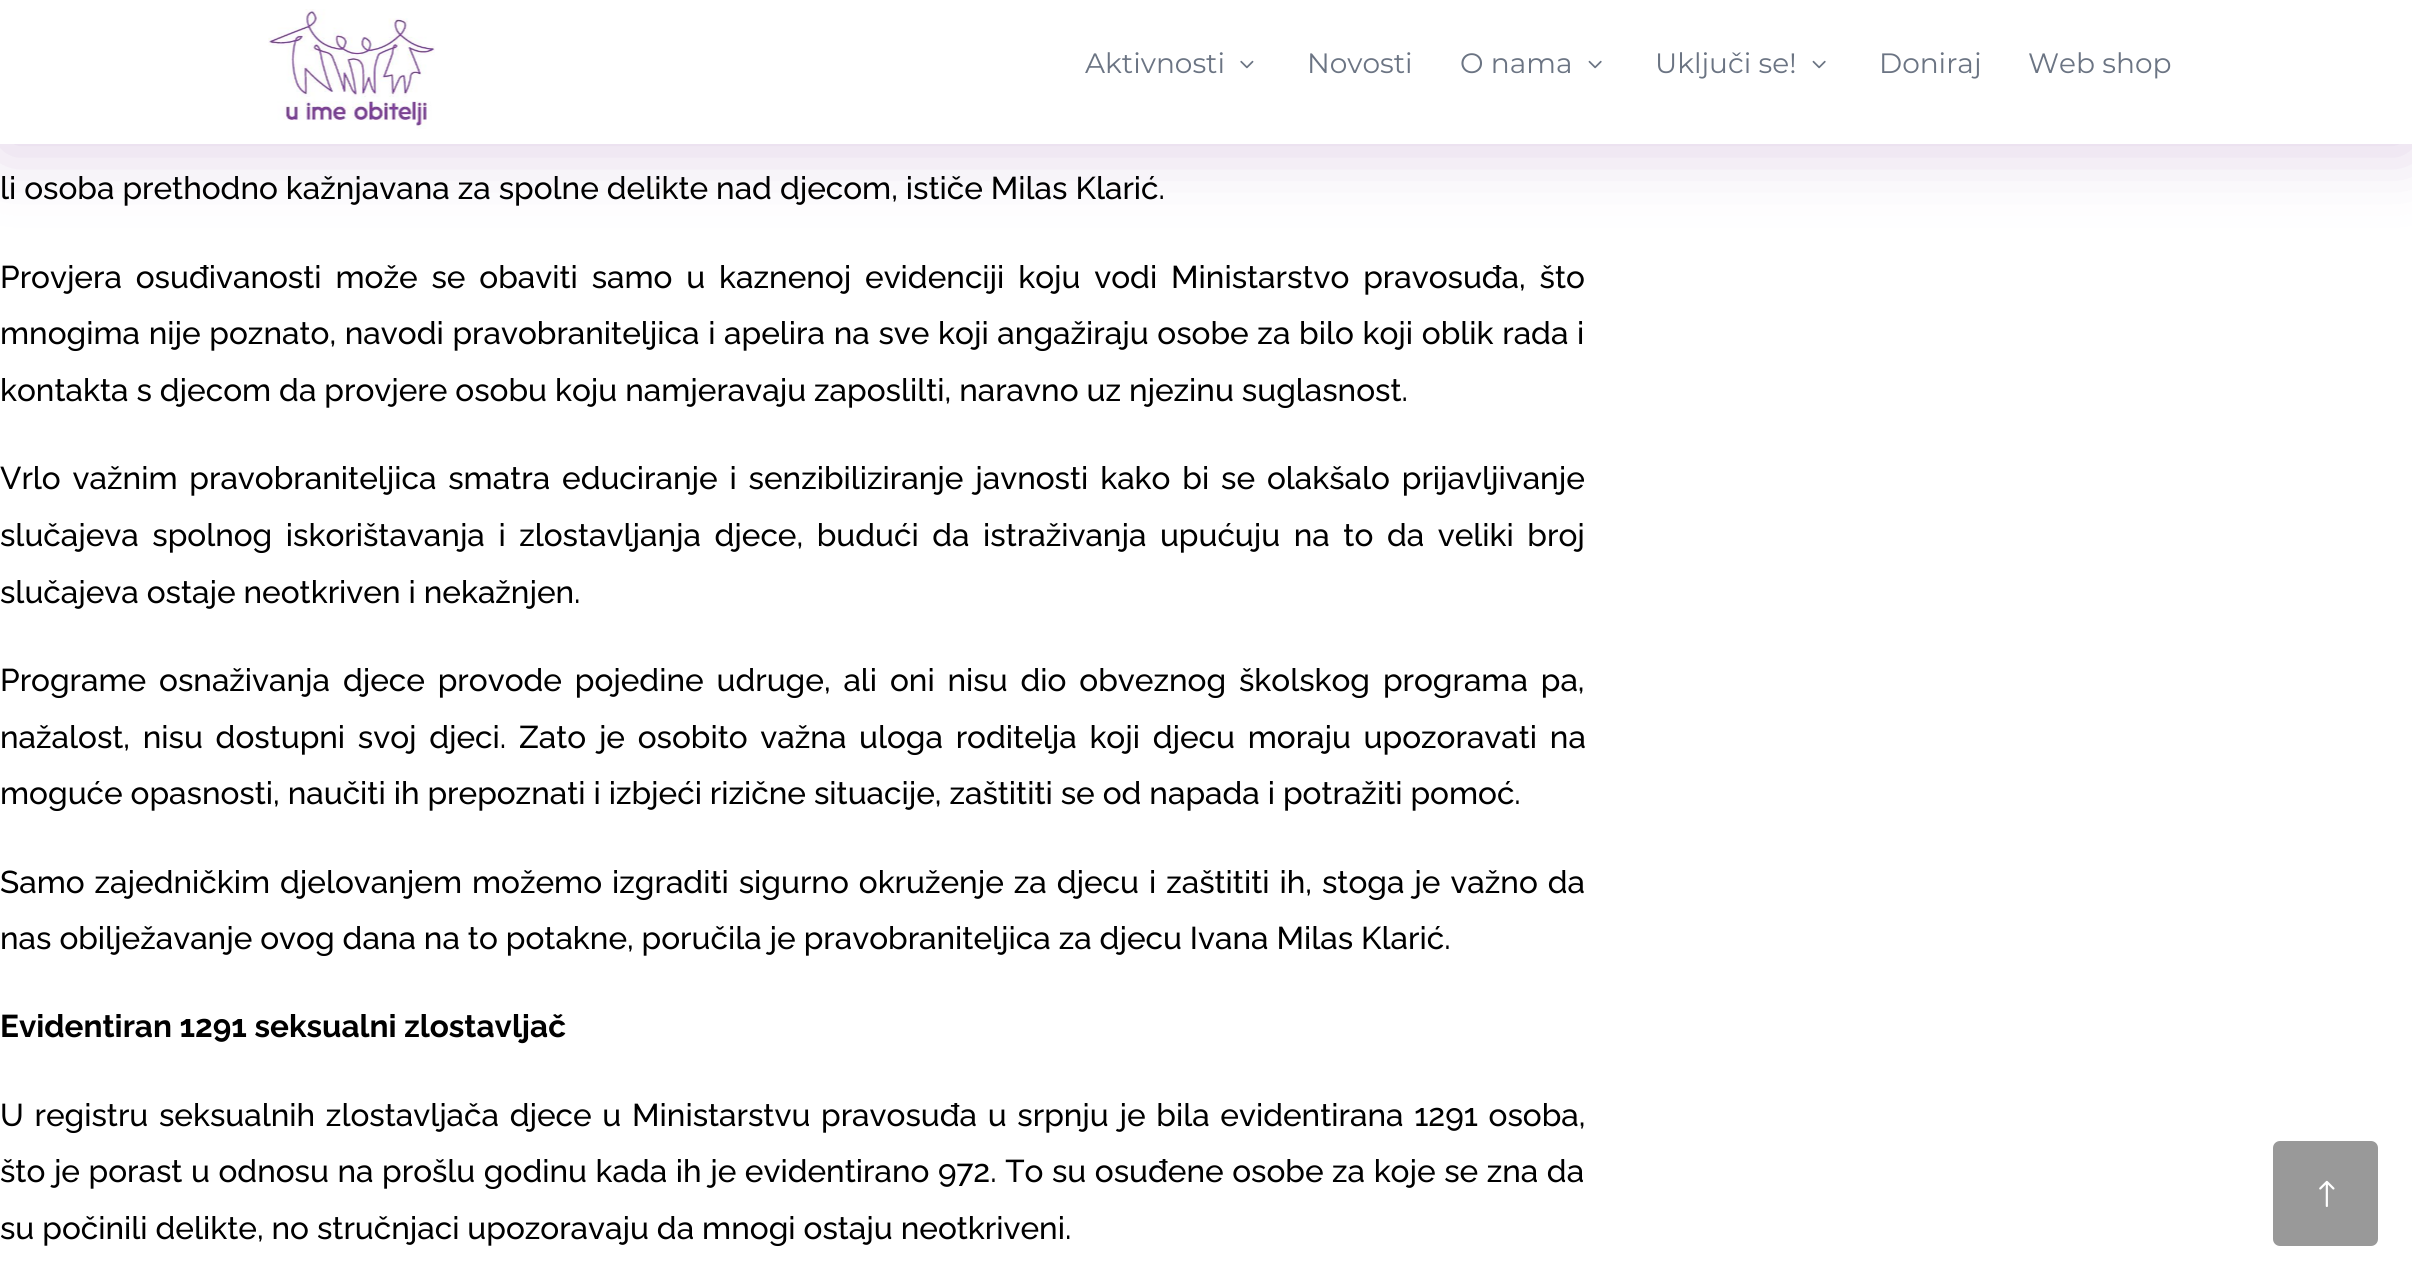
#include <cairo.h>
#include <math.h>
#include <stddef.h>


static void ink(cairo_t *ctx, unsigned color) {
    cairo_set_source_rgb(ctx, (color >> 16) / 255.0, (color >> 8 & 255) / 255.0, (color & 255) / 255.0);
}

static void write_spaced(cairo_t *ctx, double x, double y, const char *s, double letter, double word) {
    cairo_move_to(ctx, x, y);
    while (*s) {
        char ch[5] = {0};
        int n = 0;
        do ch[n++] = *s++; while ((*s & 0xC0) == 0x80);
        cairo_show_text(ctx, ch);
        cairo_rel_move_to(ctx, letter + word * (*ch == ' '), 0);
    }
}

static void round_path(cairo_t *ctx, double x, double y, double w, double h, double r) {
    cairo_new_sub_path(ctx);
    cairo_arc(ctx, x + w - r, y + h - r, r, 0, M_PI / 2);
    cairo_arc(ctx, x + r, y + h - r, r, M_PI / 2, M_PI);
    cairo_arc(ctx, x + r, y + r, r, M_PI, 1.5 * M_PI);
    cairo_arc(ctx, x + w - r, y + r, r, 1.5 * M_PI, 2 * M_PI);
    cairo_close_path(ctx);
}

static void blur_box(cairo_t *ctx, double x, double y, double w, double h, double r, double blur, double alpha) {
    cairo_push_group_with_content(ctx, CAIRO_CONTENT_ALPHA);
    cairo_set_operator(ctx, CAIRO_OPERATOR_SOURCE);
    for (int i = 15; i >= -15 && fmin(w, h) + blur * i / 3 > 0; i -= 2) {
        double e = blur * i / 6;
        cairo_set_source_rgba(ctx, 0, 0, 0, alpha * erfc((i - 1) / 8.5) / 2);
        round_path(ctx, x - e, y - e, w + 2 * e, h + 2 * e, fmax(0, fmin(r + e + blur * .6, fmin(w, h) / 2 + e)));
        cairo_fill(ctx);
    }
    cairo_pattern_t *soft = cairo_pop_group(ctx);
    cairo_mask(ctx, soft);
    cairo_pattern_destroy(soft);
}

static void paste(cairo_t *ctx, const char *path, double x, double y, double w, double h) {
    cairo_surface_t *image = cairo_image_surface_create_from_png(path);
    cairo_save(ctx);
    cairo_set_source_surface(ctx, image, x, y);
    cairo_rectangle(ctx, x, y, w, h);
    cairo_fill(ctx);
    cairo_restore(ctx);
    cairo_surface_destroy(image);
}

int main(void) {
    cairo_surface_t *surface = cairo_image_surface_create(CAIRO_FORMAT_RGB24, 2412, 1280);
    cairo_t *ctx = cairo_create(surface);
    cairo_font_options_t *options = cairo_font_options_create();
    cairo_font_options_set_hint_metrics(options, CAIRO_HINT_METRICS_OFF);
    cairo_font_options_set_hint_style(options, CAIRO_HINT_STYLE_NONE);
    cairo_set_font_options(ctx, options);
    cairo_set_miter_limit(ctx, 4);
    ink(ctx, 0xFFFFFF);
    cairo_paint(ctx);
    ink(ctx, 0x7F3F98);
    blur_box(ctx, 0, 9, 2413, 143, 0, 35, 0.24);
    ink(ctx, 0xFFFFFF);
    cairo_rectangle(ctx, 0, 0, 2412, 144);
    cairo_fill(ctx);
    paste(ctx, "media/1.png", 268, 9, 167, 120);
    cairo_select_font_face(ctx, "Montserrat", CAIRO_FONT_SLANT_NORMAL, CAIRO_FONT_WEIGHT_NORMAL);
    cairo_set_font_size(ctx, 28);
    ink(ctx, 0x6B7483);
    cairo_move_to(ctx, 1085, 73);
    cairo_show_text(ctx, "Aktivnosti");
    paste(ctx, "media/2.png", 1240, 60, 14, 9);
    cairo_move_to(ctx, 1307, 73);
    cairo_show_text(ctx, "Novosti");
    cairo_move_to(ctx, 1460, 73);
    cairo_show_text(ctx, "O nama");
    paste(ctx, "media/3.png", 1588, 60, 14, 9);
    cairo_move_to(ctx, 1655, 73);
    cairo_show_text(ctx, "Uključi se!");
    paste(ctx, "media/3.png", 1812, 60, 14, 9);
    cairo_move_to(ctx, 1879, 73);
    cairo_show_text(ctx, "Doniraj");
    cairo_move_to(ctx, 2028, 73);
    cairo_show_text(ctx, "Web shop");
    cairo_select_font_face(ctx, "Raleway Medium", CAIRO_FONT_SLANT_NORMAL, CAIRO_FONT_WEIGHT_NORMAL);
    cairo_set_font_size(ctx, 31.5);
    ink(ctx, 0x000000);
    cairo_move_to(ctx, 0, 199);
    cairo_show_text(ctx, "li osoba prethodno kažnjavana za spolne delikte nad djecom, ističe Milas Klarić.");
    write_spaced(ctx, 0, 288, "Provjera osuđivanosti može se obaviti samo u kaznenoj evidenciji koju vodi Ministarstvo pravosuđa, što", 0, 5.9);
    write_spaced(ctx, 0, 344, "mnogima nije poznato, navodi pravobraniteljica i apelira na sve koji angažiraju osobe za bilo koji oblik rada i", 0, 0.75);
    cairo_move_to(ctx, 0, 401);
    cairo_show_text(ctx, "kontakta s djecom da provjere osobu koju namjeravaju zaposlilti, naravno uz njezinu suglasnost.");
    write_spaced(ctx, 0, 489, "Vrlo važnim pravobraniteljica smatra educiranje i senzibiliziranje javnosti kako bi se olakšalo prijavljivanje", 0, 3.9);
    write_spaced(ctx, 0, 546, "slučajeva spolnog iskorištavanja i zlostavljanja djece, budući da istraživanja upućuju na to da veliki broj", 0, 5.6);
    cairo_move_to(ctx, 0, 603);
    cairo_show_text(ctx, "slučajeva ostaje neotkriven i nekažnjen.");
    write_spaced(ctx, 0, 691, "Programe osnaživanja djece provode pojedine udruge, ali oni nisu dio obveznog školskog programa pa,", 0, 4.9);
    write_spaced(ctx, 0, 748, "nažalost, nisu dostupni svoj djeci. Zato je osobito važna uloga roditelja koji djecu moraju upozoravati na", 0, 4.75);
    cairo_move_to(ctx, 0, 804);
    cairo_show_text(ctx, "moguće opasnosti, naučiti ih prepoznati i izbjeći rizične situacije, zaštititi se od napada i potražiti pomoć.");
    write_spaced(ctx, 0, 893, "Samo zajedničkim djelovanjem možemo izgraditi sigurno okruženje za djecu i zaštititi ih, stoga je važno da", 0, 2);
    cairo_move_to(ctx, 0, 949);
    cairo_show_text(ctx, "nas obilježavanje ovog dana na to potakne, poručila je pravobraniteljica za djecu Ivana Milas Klarić.");
    cairo_select_font_face(ctx, "Raleway", CAIRO_FONT_SLANT_NORMAL, CAIRO_FONT_WEIGHT_BOLD);
    cairo_move_to(ctx, 0, 1037);
    cairo_show_text(ctx, "Evidentiran 1291 seksualni zlostavljač");
    cairo_select_font_face(ctx, "Raleway Medium", CAIRO_FONT_SLANT_NORMAL, CAIRO_FONT_WEIGHT_NORMAL);
    write_spaced(ctx, 0, 1126, "U registru seksualnih zlostavljača djece u Ministarstvu pravosuđa u srpnju je bila evidentirana 1291 osoba,", 0, 2.75);
    write_spaced(ctx, 0, 1182, "što je porast u odnosu na prošlu godinu kada ih je evidentirano 972. To su osuđene osobe za koje se zna da", 0, 0.6);
    cairo_move_to(ctx, 0, 1239);
    cairo_show_text(ctx, "su počinili delikte, no stručnjaci upozoravaju da mnogi ostaju neotkriveni.");
    ink(ctx, 0x999999);
    round_path(ctx, 2273, 1141, 105, 105, 7);
    cairo_fill(ctx);
    paste(ctx, "media/4.png", 2319, 1180, 16, 27);
    cairo_surface_write_to_png(surface, "image.png");
    cairo_font_options_destroy(options);
    cairo_destroy(ctx);
    cairo_surface_destroy(surface);
    return 0;
}
